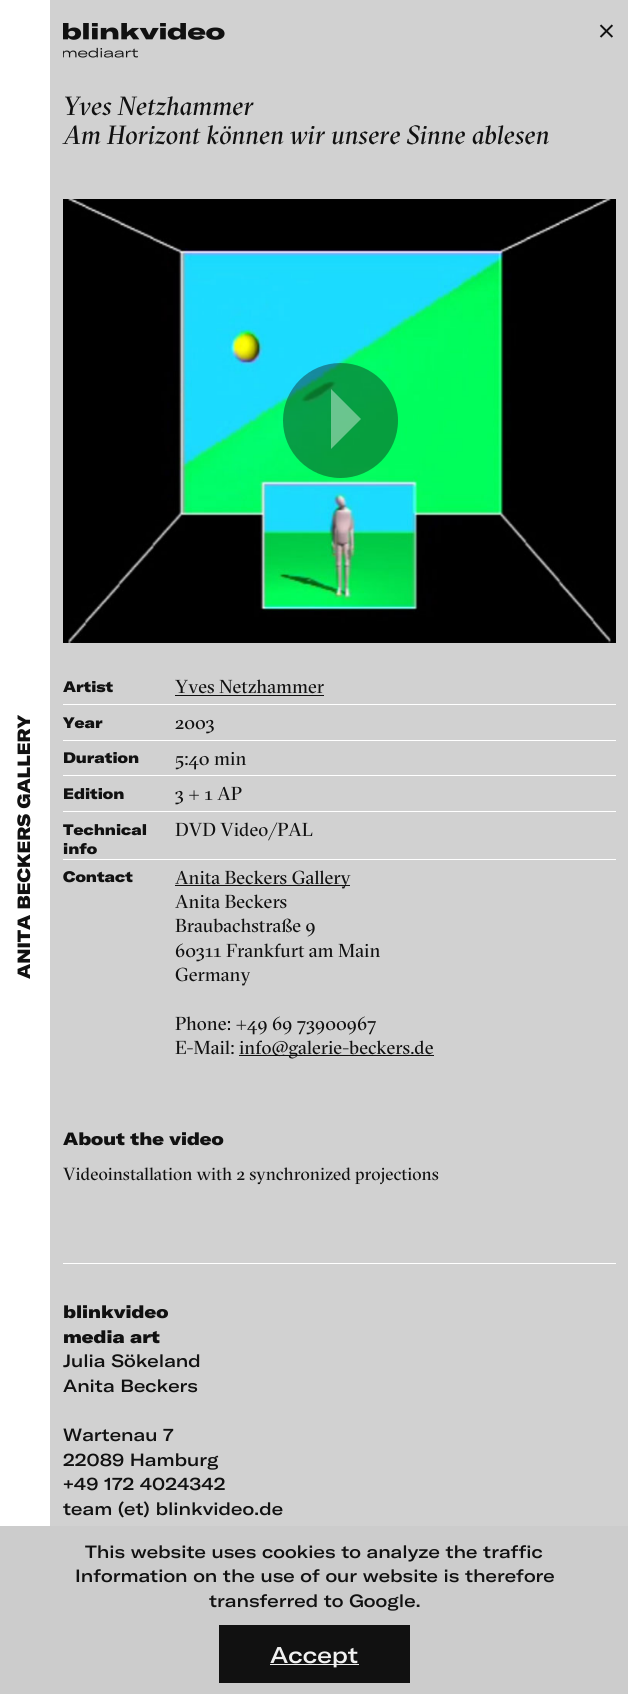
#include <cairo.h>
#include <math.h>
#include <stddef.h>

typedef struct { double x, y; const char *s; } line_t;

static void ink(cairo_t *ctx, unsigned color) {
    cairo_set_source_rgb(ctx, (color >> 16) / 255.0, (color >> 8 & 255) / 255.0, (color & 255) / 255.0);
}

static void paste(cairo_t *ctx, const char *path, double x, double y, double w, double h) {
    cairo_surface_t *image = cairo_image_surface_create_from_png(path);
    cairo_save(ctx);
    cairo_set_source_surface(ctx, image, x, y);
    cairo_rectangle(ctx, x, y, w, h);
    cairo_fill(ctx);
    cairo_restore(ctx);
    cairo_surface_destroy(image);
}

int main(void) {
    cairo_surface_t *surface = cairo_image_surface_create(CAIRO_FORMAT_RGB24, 628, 1694);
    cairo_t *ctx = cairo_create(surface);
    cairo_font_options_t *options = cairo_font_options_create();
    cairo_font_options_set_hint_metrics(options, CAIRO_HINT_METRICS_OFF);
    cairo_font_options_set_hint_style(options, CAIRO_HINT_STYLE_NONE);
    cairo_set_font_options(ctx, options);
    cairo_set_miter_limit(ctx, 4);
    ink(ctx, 0xFFFFFF);
    cairo_paint(ctx);
    cairo_select_font_face(ctx, "GT America Black", CAIRO_FONT_SLANT_NORMAL, CAIRO_FONT_WEIGHT_NORMAL);
    cairo_set_font_size(ctx, 17.5);
    ink(ctx, 0x111111);
    cairo_save(ctx);
    cairo_translate(ctx, 30, 979);
    cairo_rotate(ctx, -90 * M_PI / 180);
    cairo_move_to(ctx, 0, 0);
    cairo_show_text(ctx, "ANITA BECKERS GALLERY");
    cairo_restore(ctx);
    ink(ctx, 0xD1D1D1);
    cairo_rectangle(ctx, 50, 0, 578, 1526);
    cairo_fill(ctx);
    paste(ctx, "media/1.png", 599, 24, 14, 14);
    paste(ctx, "media/2.png", 63, 23, 162, 35);
    cairo_select_font_face(ctx, "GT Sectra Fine", CAIRO_FONT_SLANT_ITALIC, CAIRO_FONT_WEIGHT_NORMAL);
    cairo_set_font_size(ctx, 26.25);
    ink(ctx, 0x111111);
    cairo_move_to(ctx, 63, 115);
    cairo_show_text(ctx, "Yves Netzhammer");
    cairo_move_to(ctx, 63, 144);
    cairo_show_text(ctx, "Am Horizont können wir unsere Sinne ablesen");
    paste(ctx, "media/3.png", 63, 199, 553, 444);
    cairo_set_source_rgba(ctx, 0.067, 0.067, 0.067, 0.4);
    cairo_arc(ctx, 340.5, 420.5, 57.5, 0, 2 * M_PI);
    cairo_fill(ctx);
    cairo_set_source_rgba(ctx, 1, 1, 1, 0.4);
    cairo_new_path(ctx);
    cairo_move_to(ctx, 331, 449);
    cairo_line_to(ctx, 361, 419);
    cairo_line_to(ctx, 331, 389);
    cairo_close_path(ctx);
    cairo_fill(ctx);
    ink(ctx, 0xFFFFFF);
    cairo_rectangle(ctx, 63, 704, 553, 1);
    cairo_fill(ctx);
    cairo_select_font_face(ctx, "GT America Black", CAIRO_FONT_SLANT_NORMAL, CAIRO_FONT_WEIGHT_NORMAL);
    cairo_set_font_size(ctx, 15);
    ink(ctx, 0x111111);
    cairo_move_to(ctx, 63, 692);
    cairo_show_text(ctx, "Artist");
    cairo_select_font_face(ctx, "GT Sectra Fine", CAIRO_FONT_SLANT_NORMAL, CAIRO_FONT_WEIGHT_NORMAL);
    cairo_set_font_size(ctx, 18.75);
    cairo_move_to(ctx, 175, 693);
    cairo_show_text(ctx, "Yves Netzhammer");
    cairo_rectangle(ctx, 175, 695, 149, 1);
    cairo_fill(ctx);
    ink(ctx, 0xFFFFFF);
    cairo_rectangle(ctx, 63, 740, 553, 1);
    cairo_fill(ctx);
    cairo_select_font_face(ctx, "GT America Black", CAIRO_FONT_SLANT_NORMAL, CAIRO_FONT_WEIGHT_NORMAL);
    cairo_set_font_size(ctx, 15);
    ink(ctx, 0x111111);
    cairo_move_to(ctx, 63, 728);
    cairo_show_text(ctx, "Year");
    cairo_select_font_face(ctx, "GT Sectra Fine", CAIRO_FONT_SLANT_NORMAL, CAIRO_FONT_WEIGHT_NORMAL);
    cairo_set_font_size(ctx, 18.75);
    cairo_move_to(ctx, 175, 729);
    cairo_show_text(ctx, "2003");
    ink(ctx, 0xFFFFFF);
    cairo_rectangle(ctx, 63, 775, 553, 1);
    cairo_fill(ctx);
    cairo_select_font_face(ctx, "GT America Black", CAIRO_FONT_SLANT_NORMAL, CAIRO_FONT_WEIGHT_NORMAL);
    cairo_set_font_size(ctx, 15);
    ink(ctx, 0x111111);
    cairo_move_to(ctx, 63, 763);
    cairo_show_text(ctx, "Duration");
    cairo_select_font_face(ctx, "GT Sectra Fine", CAIRO_FONT_SLANT_NORMAL, CAIRO_FONT_WEIGHT_NORMAL);
    cairo_set_font_size(ctx, 18.75);
    cairo_move_to(ctx, 175, 765);
    cairo_show_text(ctx, "5:40 min");
    ink(ctx, 0xFFFFFF);
    cairo_rectangle(ctx, 63, 811, 553, 1);
    cairo_fill(ctx);
    cairo_select_font_face(ctx, "GT America Black", CAIRO_FONT_SLANT_NORMAL, CAIRO_FONT_WEIGHT_NORMAL);
    cairo_set_font_size(ctx, 15);
    ink(ctx, 0x111111);
    cairo_move_to(ctx, 63, 799);
    cairo_show_text(ctx, "Edition");
    cairo_select_font_face(ctx, "GT Sectra Fine", CAIRO_FONT_SLANT_NORMAL, CAIRO_FONT_WEIGHT_NORMAL);
    cairo_set_font_size(ctx, 18.75);
    cairo_move_to(ctx, 175, 800);
    cairo_show_text(ctx, "3 + 1 AP");
    ink(ctx, 0xFFFFFF);
    cairo_rectangle(ctx, 63, 859, 553, 1);
    cairo_fill(ctx);
    cairo_select_font_face(ctx, "GT America Black", CAIRO_FONT_SLANT_NORMAL, CAIRO_FONT_WEIGHT_NORMAL);
    cairo_set_font_size(ctx, 15);
    ink(ctx, 0x111111);
    cairo_move_to(ctx, 63, 835);
    cairo_show_text(ctx, "Technical");
    cairo_move_to(ctx, 63, 854);
    cairo_show_text(ctx, "info");
    cairo_select_font_face(ctx, "GT Sectra Fine", CAIRO_FONT_SLANT_NORMAL, CAIRO_FONT_WEIGHT_NORMAL);
    cairo_set_font_size(ctx, 18.75);
    cairo_move_to(ctx, 175, 836);
    cairo_show_text(ctx, "DVD Video/PAL");
    cairo_select_font_face(ctx, "GT America Black", CAIRO_FONT_SLANT_NORMAL, CAIRO_FONT_WEIGHT_NORMAL);
    cairo_set_font_size(ctx, 15);
    cairo_move_to(ctx, 63, 882);
    cairo_show_text(ctx, "Contact");
    cairo_rectangle(ctx, 175, 885, 175, 1);
    cairo_fill(ctx);
    cairo_select_font_face(ctx, "GT Sectra Fine", CAIRO_FONT_SLANT_NORMAL, CAIRO_FONT_WEIGHT_NORMAL);
    cairo_set_font_size(ctx, 18.75);
    {
        static const line_t items[] = {
            {175, 884, "Anita Beckers Gallery"},
            {175, 908, "Anita Beckers"},
            {175, 932, "Braubachstraße 9"},
            {175, 957, "60311 Frankfurt am Main"},
            {175, 981, "Germany"},
            {175, 1030, "Phone: +49 69 73900967"},
            {175, 1054, "E-Mail:"},
        };
        for (size_t i = 0; i < sizeof items / sizeof *items; i++) {
            cairo_move_to(ctx, items[i].x, items[i].y);
            cairo_show_text(ctx, items[i].s);
        }
    }
    cairo_rectangle(ctx, 239, 1055, 195, 1);
    cairo_fill(ctx);
    cairo_move_to(ctx, 239, 1054);
    cairo_show_text(ctx, "info@galerie-beckers.de");
    cairo_select_font_face(ctx, "GT America Black", CAIRO_FONT_SLANT_NORMAL, CAIRO_FONT_WEIGHT_NORMAL);
    cairo_set_font_size(ctx, 17.5);
    cairo_move_to(ctx, 63, 1145);
    cairo_show_text(ctx, "About the video");
    cairo_select_font_face(ctx, "GT Sectra Fine", CAIRO_FONT_SLANT_NORMAL, CAIRO_FONT_WEIGHT_NORMAL);
    cairo_move_to(ctx, 63, 1180);
    cairo_show_text(ctx, "Videoinstallation with 2 synchronized projections");
    ink(ctx, 0xFFFFFF);
    cairo_rectangle(ctx, 63, 1263, 553, 1);
    cairo_fill(ctx);
    cairo_select_font_face(ctx, "GT America Black", CAIRO_FONT_SLANT_NORMAL, CAIRO_FONT_WEIGHT_NORMAL);
    ink(ctx, 0x111111);
    cairo_move_to(ctx, 63, 1318);
    cairo_show_text(ctx, "blinkvideo");
    cairo_move_to(ctx, 63, 1343);
    cairo_show_text(ctx, "media art");
    cairo_select_font_face(ctx, "GT America Medium", CAIRO_FONT_SLANT_NORMAL, CAIRO_FONT_WEIGHT_NORMAL);
    {
        static const line_t items[] = {
            {63, 1367, "Julia Sökeland"},
            {63, 1392, "Anita Beckers"},
            {63, 1441, "Wartenau 7"},
            {63, 1466, "22089 Hamburg"},
            {63, 1490, "+49 172 4024342"},
            {63, 1515, "team (et) blinkvideo.de"},
        };
        for (size_t i = 0; i < sizeof items / sizeof *items; i++) {
            cairo_move_to(ctx, items[i].x, items[i].y);
            cairo_show_text(ctx, items[i].s);
        }
    }
    ink(ctx, 0xCCCCCC);
    cairo_rectangle(ctx, 0, 1526, 628, 168);
    cairo_fill(ctx);
    ink(ctx, 0x111111);
    {
        static const line_t items[] = {
            {85, 1558, "This website uses cookies to analyze the traffic"},
            {75, 1582, "Information on the use of our website is therefore"},
            {209, 1607, "transferred to Google."},
        };
        for (size_t i = 0; i < sizeof items / sizeof *items; i++) {
            cairo_move_to(ctx, items[i].x, items[i].y);
            cairo_show_text(ctx, items[i].s);
        }
    }
    cairo_rectangle(ctx, 219, 1625, 191, 58);
    cairo_fill(ctx);
    ink(ctx, 0xF1F1F1);
    cairo_rectangle(ctx, 270, 1664, 89, 1);
    cairo_fill(ctx);
    cairo_set_font_size(ctx, 22.5);
    cairo_move_to(ctx, 270, 1663);
    cairo_show_text(ctx, "Accept");
    cairo_surface_write_to_png(surface, "image.png");
    cairo_font_options_destroy(options);
    cairo_destroy(ctx);
    cairo_surface_destroy(surface);
    return 0;
}
